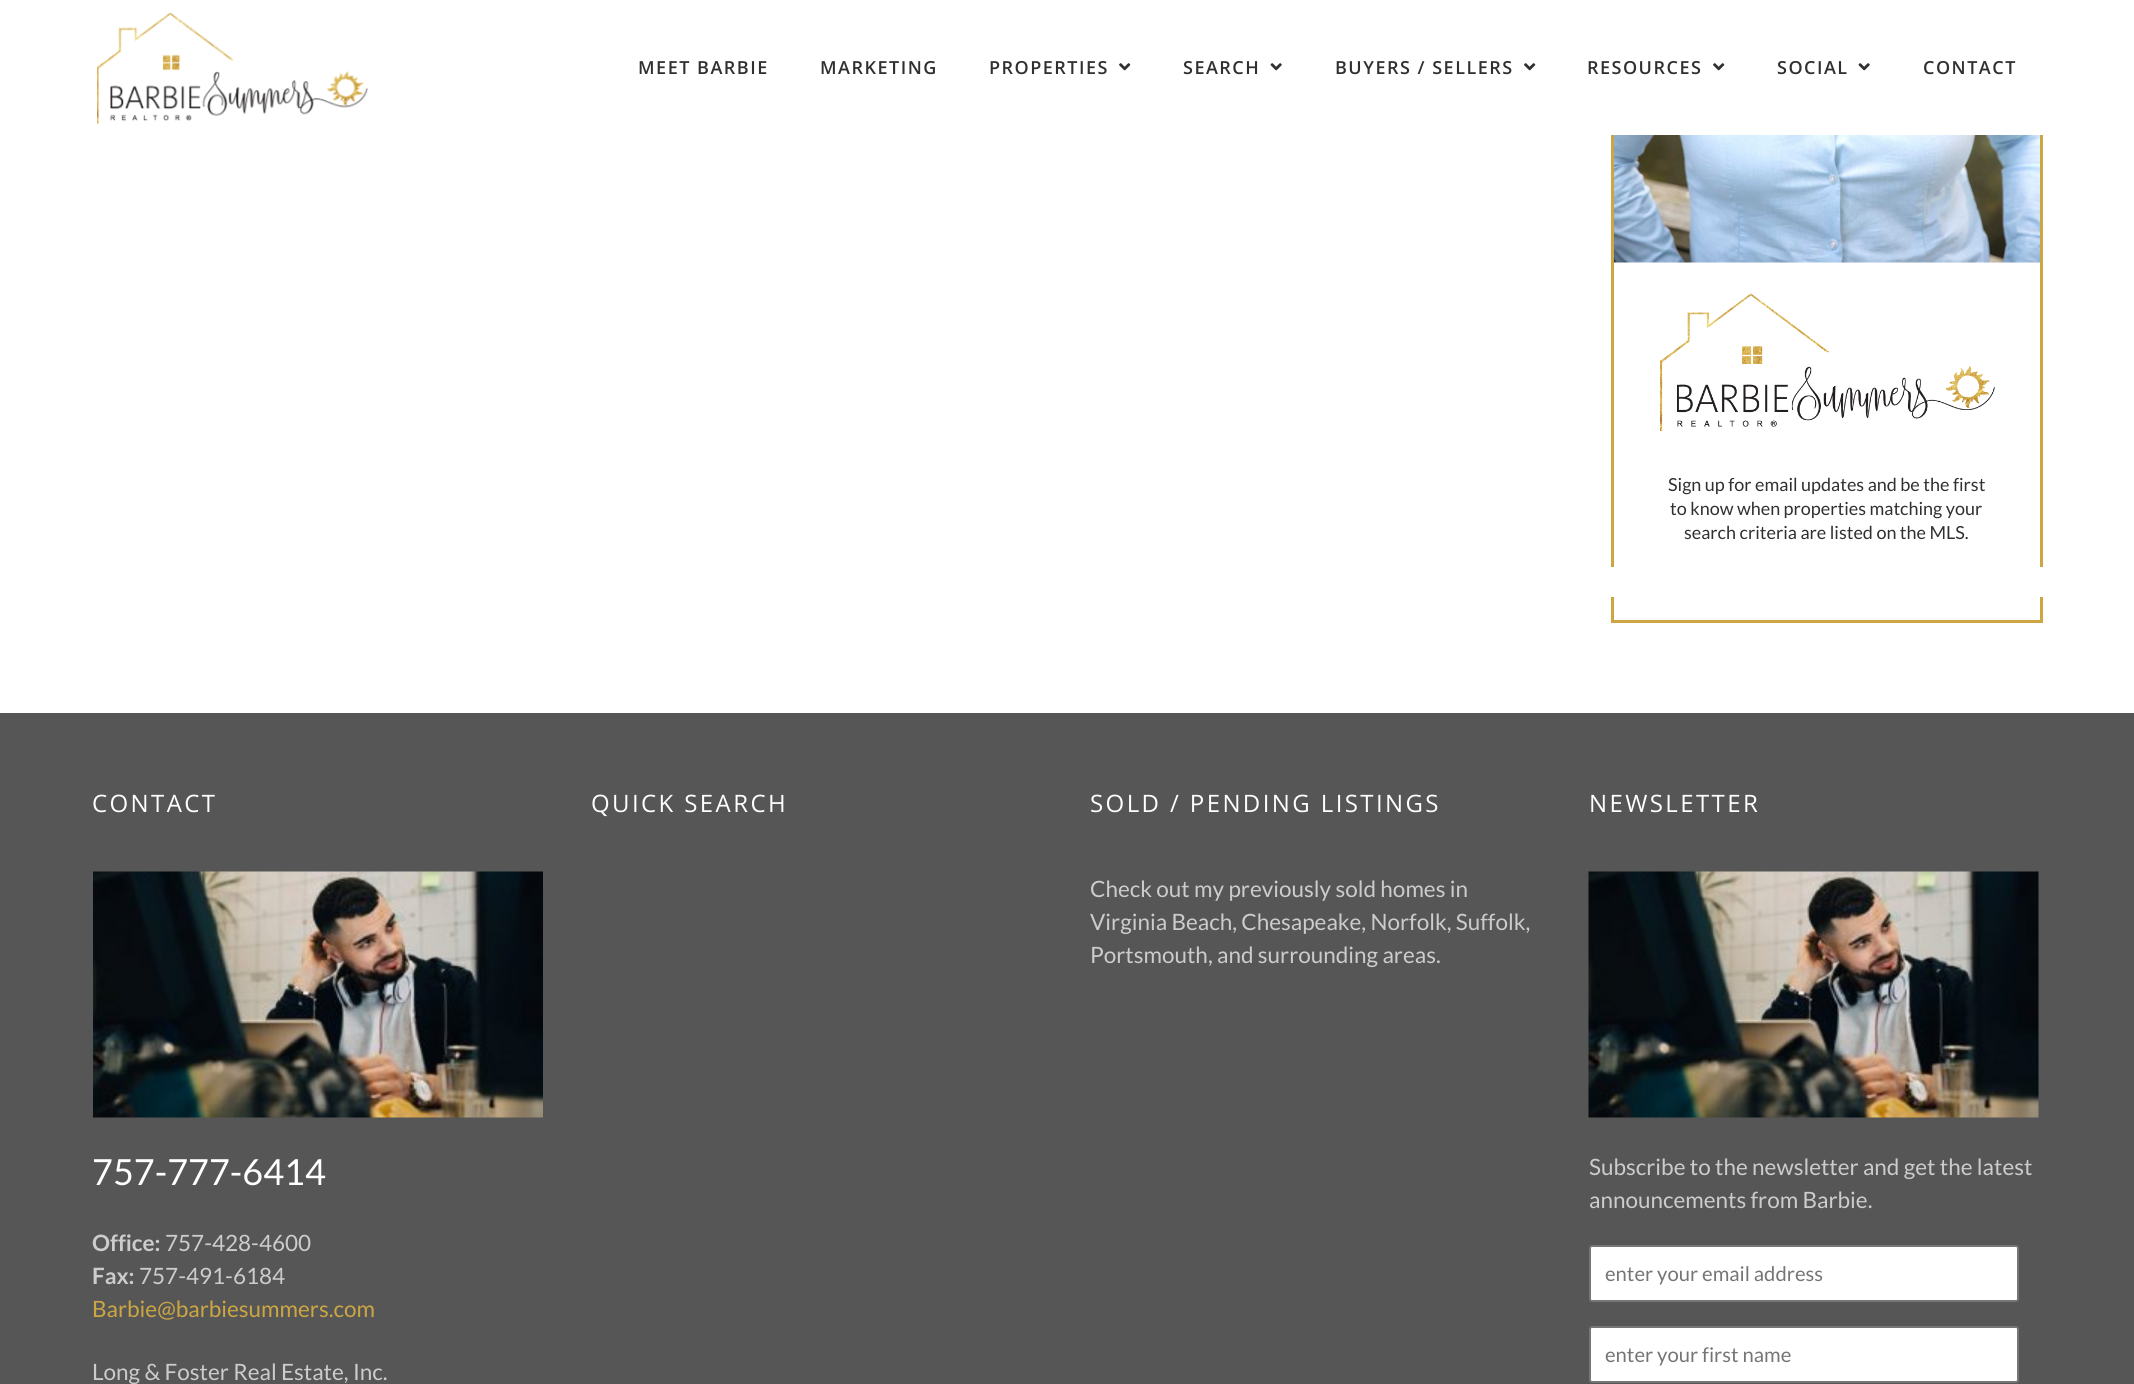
#include <cairo.h>
#include <math.h>
#include <stddef.h>

typedef struct { double x, y; const char *s; } line_t;
typedef struct { double x, y, w, h; unsigned color; } box_t;

static void ink(cairo_t *ctx, unsigned color) {
    cairo_set_source_rgb(ctx, (color >> 16) / 255.0, (color >> 8 & 255) / 255.0, (color & 255) / 255.0);
}

static void write_spaced(cairo_t *ctx, double x, double y, const char *s, double letter, double word) {
    cairo_move_to(ctx, x, y);
    while (*s) {
        char ch[5] = {0};
        int n = 0;
        do ch[n++] = *s++; while ((*s & 0xC0) == 0x80);
        cairo_show_text(ctx, ch);
        cairo_rel_move_to(ctx, letter + word * (*ch == ' '), 0);
    }
}

static void round_path(cairo_t *ctx, double x, double y, double w, double h, double r) {
    cairo_new_sub_path(ctx);
    cairo_arc(ctx, x + w - r, y + h - r, r, 0, M_PI / 2);
    cairo_arc(ctx, x + r, y + h - r, r, M_PI / 2, M_PI);
    cairo_arc(ctx, x + r, y + r, r, M_PI, 1.5 * M_PI);
    cairo_arc(ctx, x + w - r, y + r, r, 1.5 * M_PI, 2 * M_PI);
    cairo_close_path(ctx);
}

static void paste(cairo_t *ctx, const char *path, double x, double y, double w, double h) {
    cairo_surface_t *image = cairo_image_surface_create_from_png(path);
    cairo_save(ctx);
    cairo_set_source_surface(ctx, image, x, y);
    cairo_rectangle(ctx, x, y, w, h);
    cairo_fill(ctx);
    cairo_restore(ctx);
    cairo_surface_destroy(image);
}

int main(void) {
    cairo_surface_t *surface = cairo_image_surface_create(CAIRO_FORMAT_RGB24, 2134, 1384);
    cairo_t *ctx = cairo_create(surface);
    cairo_font_options_t *options = cairo_font_options_create();
    cairo_font_options_set_hint_metrics(options, CAIRO_HINT_METRICS_OFF);
    cairo_font_options_set_hint_style(options, CAIRO_HINT_STYLE_NONE);
    cairo_set_font_options(ctx, options);
    cairo_set_miter_limit(ctx, 4);
    ink(ctx, 0xFFFFFF);
    cairo_paint(ctx);
    paste(ctx, "media/1.png", 97, 12, 271, 113);
    cairo_select_font_face(ctx, "Open Sans SemiBold", CAIRO_FONT_SLANT_NORMAL, CAIRO_FONT_WEIGHT_NORMAL);
    cairo_set_font_size(ctx, 18);
    ink(ctx, 0x303030);
    {
        static const line_t items[] = {
            {638, 74, "MEET BARBIE"},
            {820, 74, "MARKETING"},
            {989, 74, "PROPERTIES"},
        };
        for (size_t i = 0; i < sizeof items / sizeof *items; i++) {
            write_spaced(ctx, items[i].x, items[i].y, items[i].s, 1.5, 0);
        }
    }
    paste(ctx, "media/2.png", 1119, 63, 12, 8);
    write_spaced(ctx, 1183, 74, "SEARCH", 1.5, 0);
    paste(ctx, "media/3.png", 1270, 63, 12, 8);
    write_spaced(ctx, 1335, 74, "BUYERS / SELLERS", 1.5, 0);
    paste(ctx, "media/2.png", 1524, 63, 12, 8);
    write_spaced(ctx, 1587, 74, "RESOURCES", 1.5, 0);
    paste(ctx, "media/2.png", 1713, 63, 12, 8);
    write_spaced(ctx, 1777, 74, "SOCIAL", 1.5, 0);
    paste(ctx, "media/3.png", 1858, 63, 12, 8);
    write_spaced(ctx, 1923, 74, "CONTACT", 1.5, 0);
    ink(ctx, 0xCCA643);
    cairo_rectangle(ctx, 2040, 135, 3, 432);
    cairo_fill(ctx);
    cairo_rectangle(ctx, 1611, 135, 3, 432);
    cairo_fill(ctx);
    paste(ctx, "media/4.png", 1614, 135, 426, 128);
    paste(ctx, "media/5.png", 1660, 293, 335, 138);
    cairo_select_font_face(ctx, "Lato", CAIRO_FONT_SLANT_NORMAL, CAIRO_FONT_WEIGHT_NORMAL);
    ink(ctx, 0x303030);
    {
        static const line_t items[] = {
            {1668, 491, "Sign up for email updates and be the first"},
            {1670, 515, "to know when properties matching your"},
            {1684, 539, "search criteria are listed on the MLS."},
        };
        for (size_t i = 0; i < sizeof items / sizeof *items; i++) {
            cairo_move_to(ctx, items[i].x, items[i].y);
            cairo_show_text(ctx, items[i].s);
        }
    }
    {
        static const box_t items[] = {
            {2040, 597, 3, 26, 0xCCA643},
            {1611, 620, 432, 3, 0xCCA643},
            {1611, 597, 3, 26, 0xCCA643},
            {0, 713, 2134, 671, 0x565656},
        };
        for (size_t i = 0; i < sizeof items / sizeof *items; i++) {
            ink(ctx, items[i].color);
            cairo_rectangle(ctx, items[i].x, items[i].y, items[i].w, items[i].h);
            cairo_fill(ctx);
        }
    }
    cairo_select_font_face(ctx, "Open Sans", CAIRO_FONT_SLANT_NORMAL, CAIRO_FONT_WEIGHT_NORMAL);
    cairo_set_font_size(ctx, 24);
    ink(ctx, 0xFFFFFF);
    write_spaced(ctx, 92, 812, "CONTACT", 2.4, 0);
    paste(ctx, "media/6.png", 93, 871, 450, 247);
    cairo_select_font_face(ctx, "Lato", CAIRO_FONT_SLANT_NORMAL, CAIRO_FONT_WEIGHT_NORMAL);
    cairo_set_font_size(ctx, 36);
    cairo_move_to(ctx, 92, 1185);
    cairo_show_text(ctx, "757-777-6414");
    cairo_select_font_face(ctx, "Lato", CAIRO_FONT_SLANT_NORMAL, CAIRO_FONT_WEIGHT_BOLD);
    cairo_set_font_size(ctx, 22.5);
    ink(ctx, 0xCCCCCC);
    cairo_move_to(ctx, 92, 1251);
    cairo_show_text(ctx, "Office:");
    cairo_select_font_face(ctx, "Lato", CAIRO_FONT_SLANT_NORMAL, CAIRO_FONT_WEIGHT_NORMAL);
    cairo_move_to(ctx, 165, 1251);
    cairo_show_text(ctx, "757-428-4600");
    cairo_select_font_face(ctx, "Lato", CAIRO_FONT_SLANT_NORMAL, CAIRO_FONT_WEIGHT_BOLD);
    cairo_move_to(ctx, 92, 1284);
    cairo_show_text(ctx, "Fax:");
    cairo_select_font_face(ctx, "Lato", CAIRO_FONT_SLANT_NORMAL, CAIRO_FONT_WEIGHT_NORMAL);
    cairo_move_to(ctx, 139, 1284);
    cairo_show_text(ctx, "757-491-6184");
    ink(ctx, 0xCCA643);
    cairo_move_to(ctx, 92, 1317);
    cairo_show_text(ctx, "Barbie@barbiesummers.com");
    ink(ctx, 0xCCCCCC);
    cairo_move_to(ctx, 92, 1380);
    cairo_show_text(ctx, "Long & Foster Real Estate, Inc.");
    cairo_select_font_face(ctx, "Open Sans", CAIRO_FONT_SLANT_NORMAL, CAIRO_FONT_WEIGHT_NORMAL);
    cairo_set_font_size(ctx, 24);
    ink(ctx, 0xFFFFFF);
    write_spaced(ctx, 591, 812, "QUICK SEARCH", 2.4, 0);
    write_spaced(ctx, 1090, 812, "SOLD / PENDING LISTINGS", 2.4, 0);
    cairo_select_font_face(ctx, "Lato", CAIRO_FONT_SLANT_NORMAL, CAIRO_FONT_WEIGHT_NORMAL);
    cairo_set_font_size(ctx, 22.5);
    ink(ctx, 0xCCCCCC);
    {
        static const line_t items[] = {
            {1090, 897, "Check out my previously sold homes in"},
            {1090, 930, "Virginia Beach, Chesapeake, Norfolk, Suffolk,"},
            {1090, 963, "Portsmouth, and surrounding areas."},
        };
        for (size_t i = 0; i < sizeof items / sizeof *items; i++) {
            cairo_move_to(ctx, items[i].x, items[i].y);
            cairo_show_text(ctx, items[i].s);
        }
    }
    cairo_select_font_face(ctx, "Open Sans", CAIRO_FONT_SLANT_NORMAL, CAIRO_FONT_WEIGHT_NORMAL);
    cairo_set_font_size(ctx, 24);
    ink(ctx, 0xFFFFFF);
    write_spaced(ctx, 1589, 812, "NEWSLETTER", 2.4, 0);
    paste(ctx, "media/7.png", 1588, 871, 451, 247);
    cairo_select_font_face(ctx, "Lato", CAIRO_FONT_SLANT_NORMAL, CAIRO_FONT_WEIGHT_NORMAL);
    cairo_set_font_size(ctx, 22.5);
    ink(ctx, 0xCCCCCC);
    cairo_move_to(ctx, 1589, 1175);
    cairo_show_text(ctx, "Subscribe to the newsletter and get the latest");
    cairo_move_to(ctx, 1589, 1208);
    cairo_show_text(ctx, "announcements from Barbie.");
    ink(ctx, 0xFFFFFF);
    round_path(ctx, 1590, 1246, 428, 55, 2);
    cairo_fill_preserve(ctx);
    ink(ctx, 0x767676);
    cairo_stroke(ctx);
    cairo_set_font_size(ctx, 20.25);
    ink(ctx, 0x757575);
    cairo_move_to(ctx, 1605, 1281);
    cairo_show_text(ctx, "enter your email address");
    ink(ctx, 0xFFFFFF);
    round_path(ctx, 1590, 1327, 428, 55, 2);
    cairo_fill_preserve(ctx);
    ink(ctx, 0x767676);
    cairo_stroke(ctx);
    ink(ctx, 0x757575);
    cairo_move_to(ctx, 1605, 1362);
    cairo_show_text(ctx, "enter your first name");
    cairo_surface_write_to_png(surface, "image.png");
    cairo_font_options_destroy(options);
    cairo_destroy(ctx);
    cairo_surface_destroy(surface);
    return 0;
}
